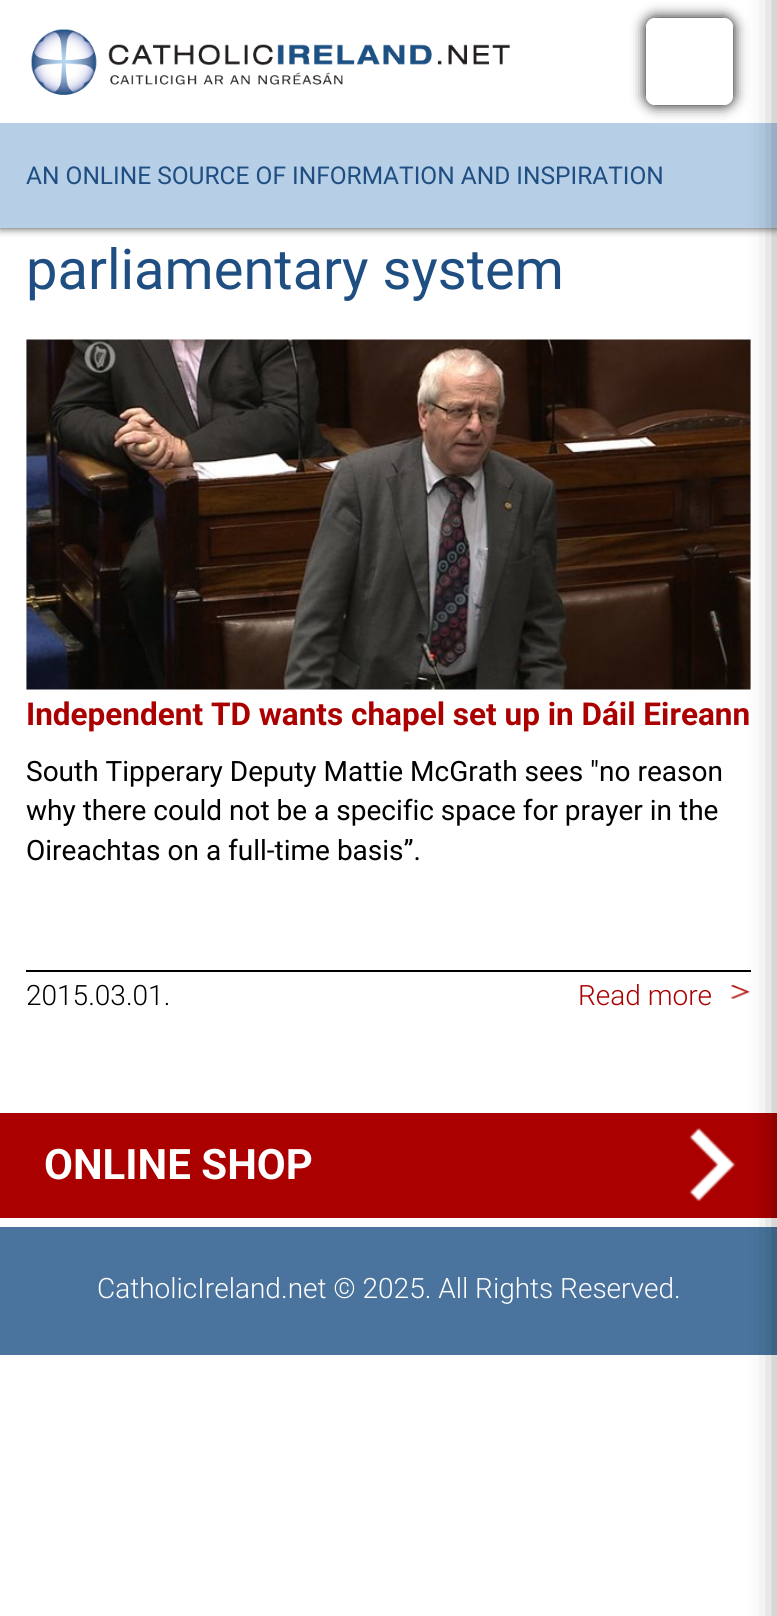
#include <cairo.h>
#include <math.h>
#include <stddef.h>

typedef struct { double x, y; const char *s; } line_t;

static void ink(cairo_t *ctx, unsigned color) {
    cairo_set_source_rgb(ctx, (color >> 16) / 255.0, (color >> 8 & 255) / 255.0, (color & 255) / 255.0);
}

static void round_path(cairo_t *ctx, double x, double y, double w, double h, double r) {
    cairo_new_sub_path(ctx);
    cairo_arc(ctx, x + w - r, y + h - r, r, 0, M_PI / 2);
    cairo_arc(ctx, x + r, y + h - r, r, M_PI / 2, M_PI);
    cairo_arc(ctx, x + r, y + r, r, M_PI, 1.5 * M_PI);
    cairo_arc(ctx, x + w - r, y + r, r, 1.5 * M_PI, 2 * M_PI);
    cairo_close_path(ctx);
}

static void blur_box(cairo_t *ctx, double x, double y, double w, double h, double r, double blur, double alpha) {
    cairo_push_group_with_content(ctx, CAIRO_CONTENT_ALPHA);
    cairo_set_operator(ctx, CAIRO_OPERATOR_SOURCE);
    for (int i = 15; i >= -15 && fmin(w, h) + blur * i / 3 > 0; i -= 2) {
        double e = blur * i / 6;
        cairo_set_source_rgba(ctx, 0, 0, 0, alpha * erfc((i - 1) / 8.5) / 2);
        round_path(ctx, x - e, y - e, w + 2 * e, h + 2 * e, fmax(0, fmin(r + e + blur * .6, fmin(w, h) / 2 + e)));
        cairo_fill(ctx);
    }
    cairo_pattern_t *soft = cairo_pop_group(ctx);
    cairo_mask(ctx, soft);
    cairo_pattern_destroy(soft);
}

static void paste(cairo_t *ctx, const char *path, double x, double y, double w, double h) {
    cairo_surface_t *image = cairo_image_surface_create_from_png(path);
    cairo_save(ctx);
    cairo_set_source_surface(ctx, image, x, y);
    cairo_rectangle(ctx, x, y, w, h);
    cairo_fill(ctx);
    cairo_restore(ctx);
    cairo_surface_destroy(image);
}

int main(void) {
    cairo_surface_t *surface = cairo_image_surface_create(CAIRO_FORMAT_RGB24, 777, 1616);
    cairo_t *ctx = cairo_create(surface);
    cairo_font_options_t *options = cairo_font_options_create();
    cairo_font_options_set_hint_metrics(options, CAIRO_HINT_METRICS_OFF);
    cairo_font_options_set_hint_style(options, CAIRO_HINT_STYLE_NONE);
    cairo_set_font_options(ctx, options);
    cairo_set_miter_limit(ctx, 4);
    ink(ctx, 0xFFFFFF);
    cairo_paint(ctx);
    cairo_save(ctx);
    cairo_rectangle(ctx, 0, 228, 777, 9);
    cairo_clip(ctx);
    ink(ctx, 0x000000);
    blur_box(ctx, 0, 0, 777, 228, 0, 4.5, 0.75);
    cairo_restore(ctx);
    paste(ctx, "media/1.png", 31, 29, 479, 66);
    ink(ctx, 0xB6CEE6);
    cairo_rectangle(ctx, 0, 123, 777, 105);
    cairo_fill(ctx);
    cairo_save(ctx);
    cairo_set_fill_rule(ctx, CAIRO_FILL_RULE_EVEN_ODD);
    cairo_new_path(ctx);
    cairo_move_to(ctx, 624, 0);
    cairo_line_to(ctx, 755, 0);
    cairo_line_to(ctx, 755, 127);
    cairo_line_to(ctx, 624, 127);
    cairo_close_path(ctx);
    cairo_move_to(ctx, 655, 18);
    cairo_line_to(ctx, 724, 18);
    cairo_curve_to(ctx, 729, 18, 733, 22, 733, 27);
    cairo_line_to(ctx, 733, 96);
    cairo_curve_to(ctx, 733, 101, 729, 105, 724, 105);
    cairo_line_to(ctx, 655, 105);
    cairo_curve_to(ctx, 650, 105, 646, 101, 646, 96);
    cairo_line_to(ctx, 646, 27);
    cairo_curve_to(ctx, 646, 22, 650, 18, 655, 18);
    cairo_close_path(ctx);
    cairo_clip(ctx);
    ink(ctx, 0x000000);
    blur_box(ctx, 646, 18, 87, 87, 9, 7, 1);
    cairo_restore(ctx);
    cairo_select_font_face(ctx, "Roboto", CAIRO_FONT_SLANT_NORMAL, CAIRO_FONT_WEIGHT_NORMAL);
    cairo_set_font_size(ctx, 24.5);
    ink(ctx, 0x1F4F82);
    cairo_move_to(ctx, 26, 184);
    cairo_show_text(ctx, "AN ONLINE SOURCE OF INFORMATION AND INSPIRATION");
    paste(ctx, "media/2.png", 26, 339, 725, 351);
    ink(ctx, 0x000000);
    cairo_rectangle(ctx, 26, 970, 725, 2);
    cairo_fill(ctx);
    paste(ctx, "media/3.png", 730, 984, 20, 15);
    ink(ctx, 0xAB0000);
    cairo_rectangle(ctx, 0, 1113, 777, 105);
    cairo_fill(ctx);
    ink(ctx, 0x4A749D);
    cairo_rectangle(ctx, 0, 1227, 777, 128);
    cairo_fill(ctx);
    ink(ctx, 0x000000);
    blur_box(ctx, 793, -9, 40, 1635, 0, 18.5, 1);
    cairo_set_font_size(ctx, 56);
    ink(ctx, 0x1F4F82);
    cairo_move_to(ctx, 26, 289);
    cairo_show_text(ctx, "parliamentary system");
    cairo_select_font_face(ctx, "Roboto", CAIRO_FONT_SLANT_NORMAL, CAIRO_FONT_WEIGHT_BOLD);
    cairo_set_font_size(ctx, 31.5);
    ink(ctx, 0xAB0000);
    cairo_move_to(ctx, 26, 725);
    cairo_show_text(ctx, "Independent TD wants chapel set up in Dáil Eireann");
    cairo_select_font_face(ctx, "Roboto", CAIRO_FONT_SLANT_NORMAL, CAIRO_FONT_WEIGHT_NORMAL);
    cairo_set_font_size(ctx, 28);
    ink(ctx, 0x000000);
    {
        static const line_t items[] = {
            {26, 781, "South Tipperary Deputy Mattie McGrath sees \"no reason"},
            {26, 820, "why there could not be a specific space for prayer in the"},
            {26, 860, "Oireachtas on a full-time basis”."},
        };
        for (size_t i = 0; i < sizeof items / sizeof *items; i++) {
            cairo_move_to(ctx, items[i].x, items[i].y);
            cairo_show_text(ctx, items[i].s);
        }
    }
    cairo_select_font_face(ctx, "Roboto Light", CAIRO_FONT_SLANT_NORMAL, CAIRO_FONT_WEIGHT_NORMAL);
    cairo_move_to(ctx, 26, 1005);
    cairo_show_text(ctx, "2015.03.01.");
    ink(ctx, 0xAB0000);
    cairo_move_to(ctx, 578, 1005);
    cairo_show_text(ctx, "Read more");
    cairo_select_font_face(ctx, "Roboto", CAIRO_FONT_SLANT_NORMAL, CAIRO_FONT_WEIGHT_BOLD);
    cairo_set_font_size(ctx, 42);
    ink(ctx, 0xFFFFFF);
    cairo_move_to(ctx, 44, 1179);
    cairo_show_text(ctx, "ONLINE SHOP");
    paste(ctx, "media/4.png", 689, 1128, 47, 73);
    cairo_select_font_face(ctx, "Roboto Light", CAIRO_FONT_SLANT_NORMAL, CAIRO_FONT_WEIGHT_NORMAL);
    cairo_set_font_size(ctx, 28);
    cairo_move_to(ctx, 97, 1298);
    cairo_show_text(ctx, "CatholicIreland.net © 2025. All Rights Reserved.");
    cairo_surface_write_to_png(surface, "image.png");
    cairo_font_options_destroy(options);
    cairo_destroy(ctx);
    cairo_surface_destroy(surface);
    return 0;
}
